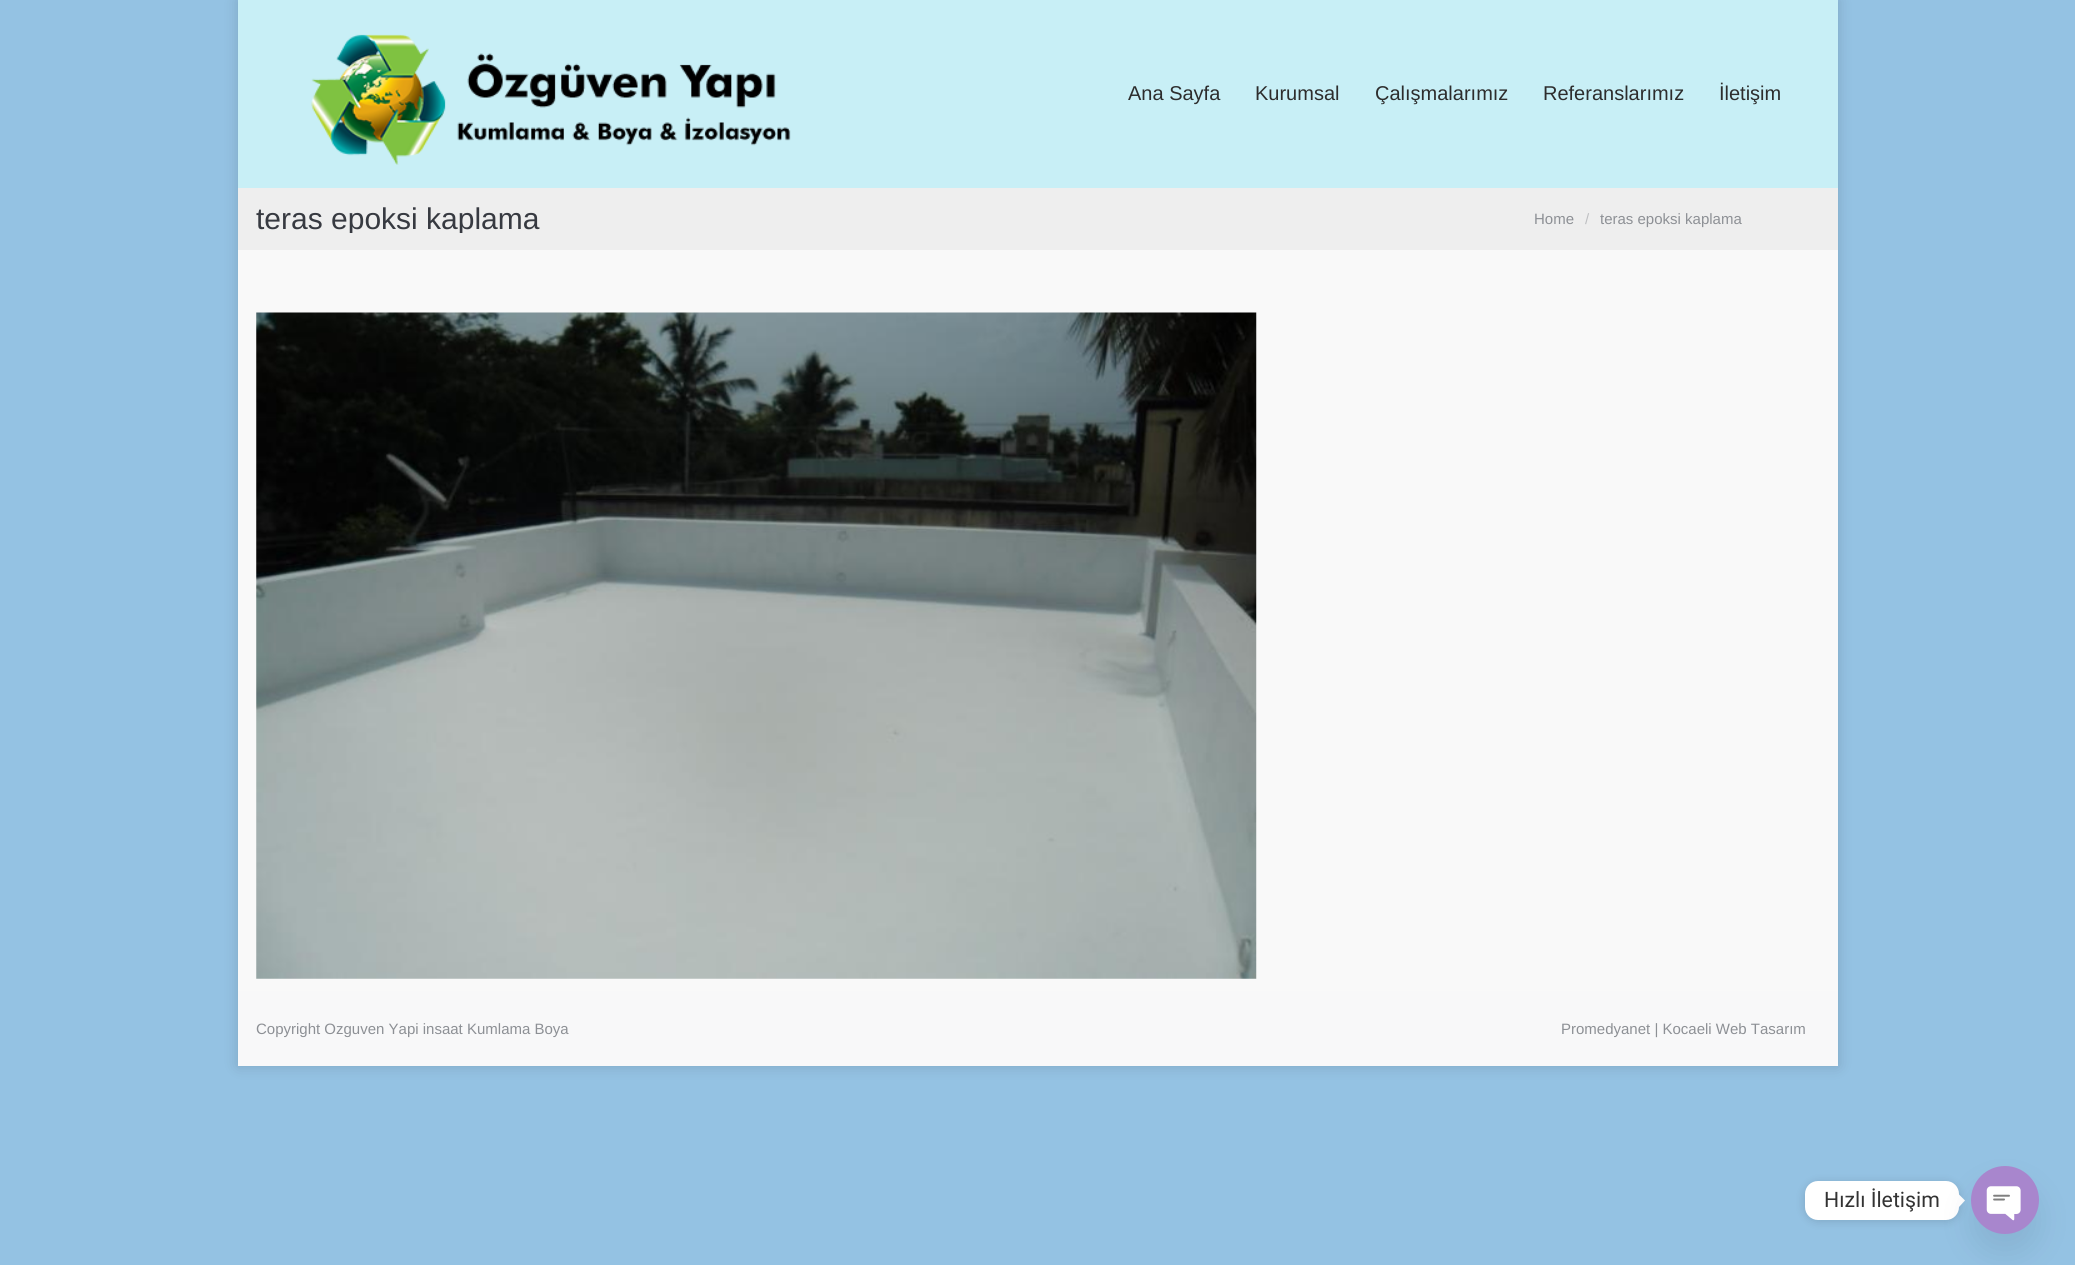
import math
import cairo

surface = cairo.ImageSurface(cairo.FORMAT_RGB24, 2075, 1265)
ctx = cairo.Context(surface)
options = cairo.FontOptions()
options.set_hint_metrics(cairo.HINT_METRICS_OFF)
options.set_hint_style(cairo.HINT_STYLE_NONE)
ctx.set_font_options(options)
ctx.set_miter_limit(4)


def round_rect(x, y, w, h, r):
    ctx.new_sub_path()
    for i, (u, v) in enumerate([(x + w - r, y + h - r), (x + r, y + h - r), (x + r, y + r), (x + w - r, y + r)]):
        ctx.arc(u, v, r, i * math.pi / 2, (i + 1) * math.pi / 2)
    ctx.close_path()


def shadow(x, y, w, h, r, blur, alpha):
    ctx.push_group_with_content(cairo.CONTENT_ALPHA)
    ctx.set_operator(cairo.OPERATOR_SOURCE)
    for i in range(15, -16, -2):
        e = blur * i / 6
        if min(w, h) + 2 * e > 0:
            ctx.set_source_rgba(0, 0, 0, alpha * math.erfc((i - 1) / 8.5) / 2)
            round_rect(x - e, y - e, w + 2 * e, h + 2 * e, max(0, min(r + e + blur * .6, min(w, h) / 2 + e)))
            ctx.fill()
    ctx.mask(ctx.pop_group())


def picture(path, x, y, w, h):
    ctx.save()
    ctx.set_source_surface(cairo.ImageSurface.create_from_png(path), x, y)
    ctx.rectangle(x, y, w, h)
    ctx.fill()
    ctx.restore()


ctx.set_source_rgb(0.58, 0.761, 0.89)
ctx.paint()
ctx.set_source_rgb(0, 0, 0)
shadow(238, 0, 1600, 1066, 0, 7.5, 0.15)
ctx.set_source_rgb(0.976, 0.976, 0.976)
ctx.rectangle(238, 0, 1600, 991)
ctx.fill()
ctx.set_source_rgba(0.569, 0.89, 0.949, 0.47)
ctx.rectangle(238, 0, 1600, 188)
ctx.fill()
picture("img1.png", 311, 34, 480, 131)
ctx.select_font_face("Liberation Sans")
ctx.set_font_size(20)
ctx.set_source_rgb(0.176, 0.176, 0.176)
ctx.move_to(1128, 100)
ctx.show_text("Ana Sayfa")
ctx.move_to(1255, 100)
ctx.show_text("Kurumsal")
ctx.move_to(1375, 100)
ctx.show_text("Çalışmalarımız")
ctx.move_to(1543, 100)
ctx.show_text("Referanslarımız")
ctx.move_to(1719, 100)
ctx.show_text("İletişim")
ctx.set_source_rgb(0.933, 0.933, 0.933)
ctx.rectangle(238, 188, 1600, 62)
ctx.fill()
ctx.save()
ctx.rectangle(256, 205, 284, 28)
ctx.clip()
ctx.set_font_size(30)
ctx.set_source_rgb(0.216, 0.227, 0.255)
ctx.move_to(256, 229)
ctx.show_text("teras epoksi kaplama")
ctx.restore()
ctx.set_font_size(15)
ctx.set_source_rgb(0.553, 0.565, 0.584)
ctx.move_to(1534, 224)
ctx.show_text("Home")
ctx.set_source_rgb(0.745, 0.749, 0.761)
ctx.move_to(1585, 224)
ctx.show_text("/")
ctx.set_source_rgb(0.553, 0.565, 0.584)
ctx.move_to(1600, 224)
ctx.show_text("teras epoksi kaplama")
picture("img2.png", 256, 312, 1001, 667)
ctx.set_source_rgb(0.969, 0.969, 0.973)
ctx.rectangle(238, 991, 1600, 75)
ctx.fill()
ctx.set_source_rgb(0.553, 0.565, 0.584)
ctx.move_to(256, 1034)
ctx.show_text("Copyright Ozguven Yapi insaat Kumlama Boya")
ctx.move_to(1561, 1034)
ctx.show_text("Promedyanet | Kocaeli Web Tasarım")
ctx.set_source_rgb(0, 0, 0)
shadow(1805, 1183, 154, 38, 13, 5, 0.15)
ctx.set_source_rgb(1, 1, 1)
round_rect(1805, 1181, 154, 39, 13)
ctx.fill()
ctx.select_font_face("Roboto")
ctx.set_font_size(21.25)
ctx.set_source_rgb(0.2, 0.2, 0.2)
ctx.move_to(1824, 1207)
ctx.show_text("Hızlı İletişim")
ctx.set_source_rgb(1, 1, 1)
ctx.new_path()
ctx.move_to(1959, 1207)
ctx.line_to(1959, 1194.5)
ctx.line_to(1965, 1200.5)
ctx.close_path()
ctx.fill()
ctx.set_source_rgb(0.286, 0.408, 0.494)
shadow(1971, 1186, 68, 68, 34, 15, 0.16)
picture("img3.png", 1971, 1166, 68, 68)
surface.write_to_png("page.png")
